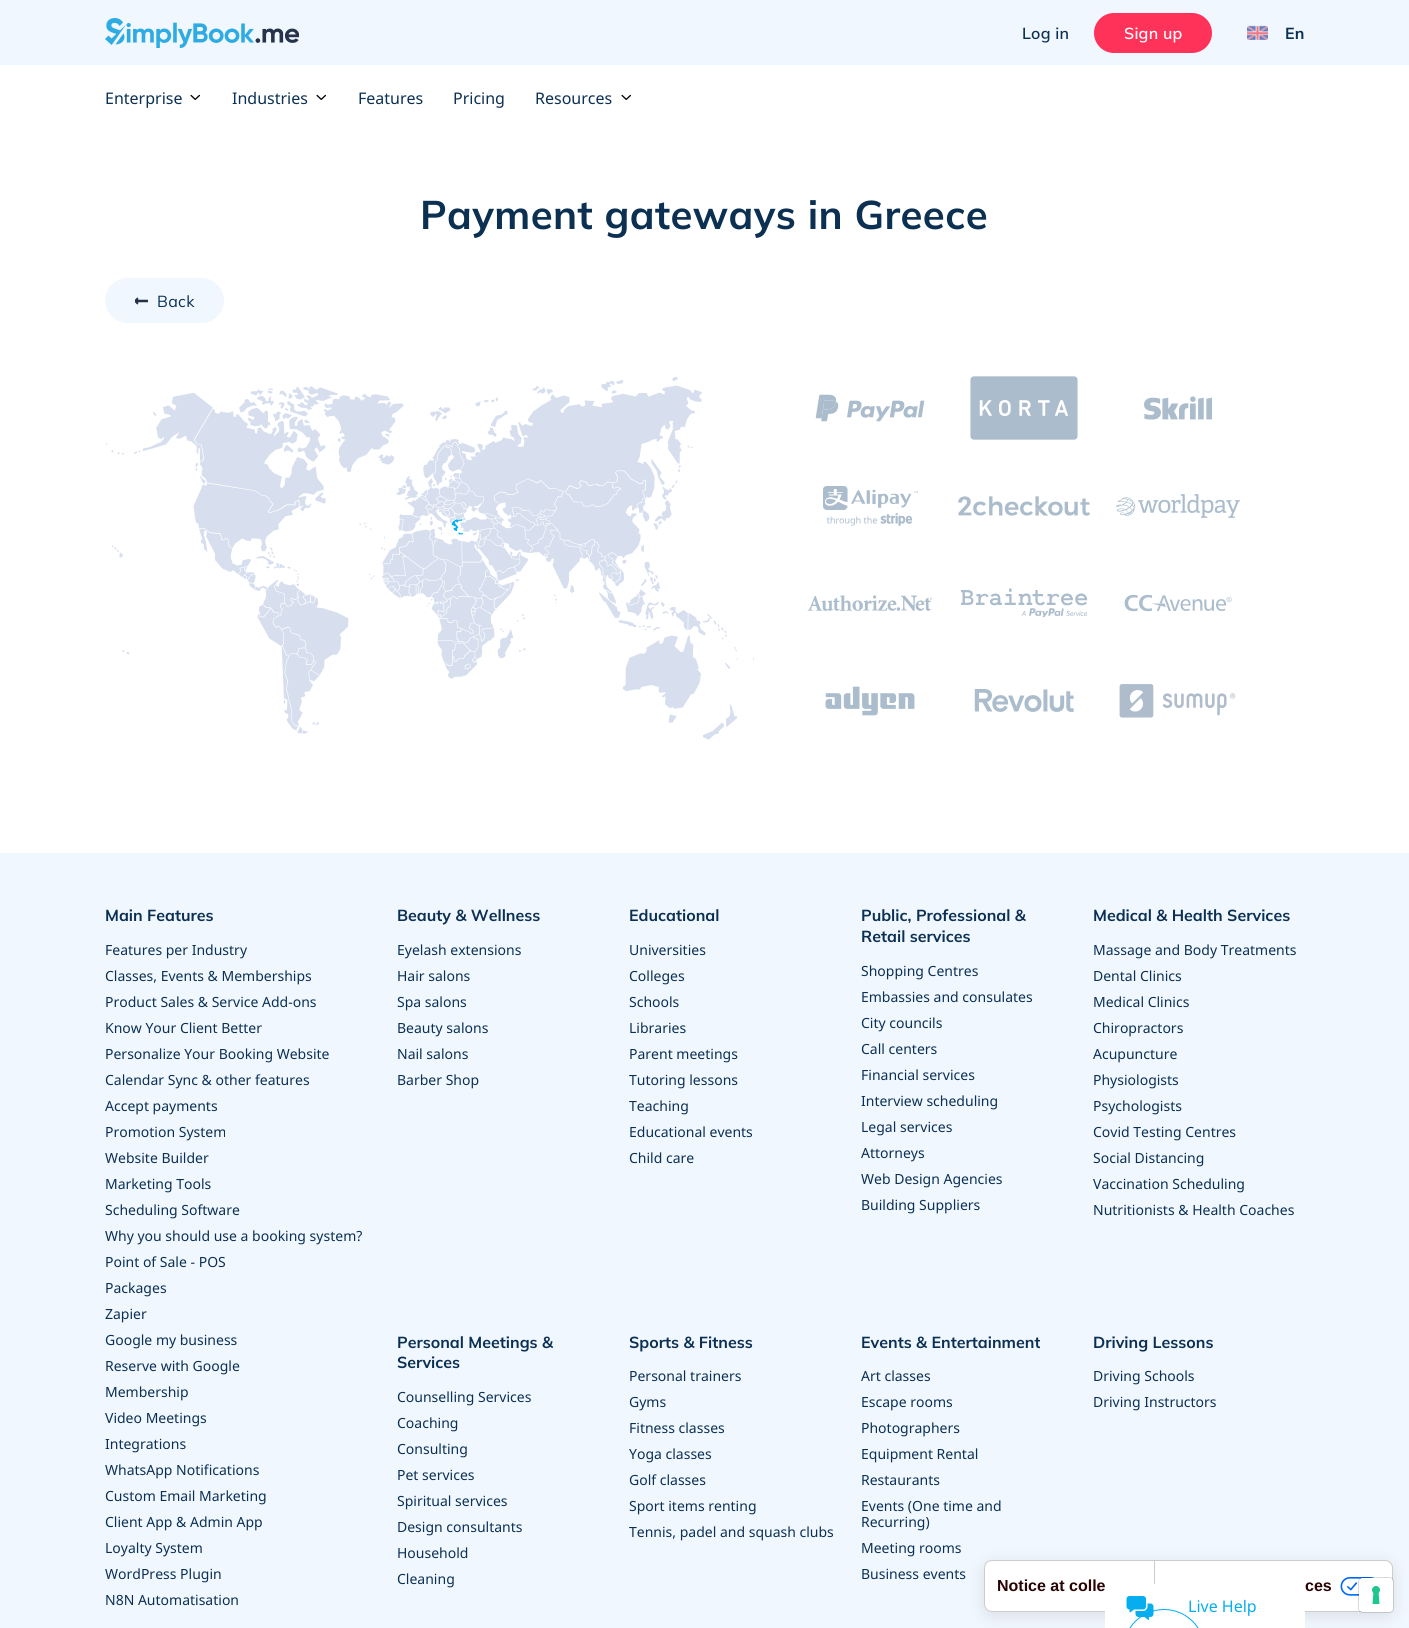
import math
import cairo

surface = cairo.ImageSurface(cairo.FORMAT_RGB24, 1409, 1628)
ctx = cairo.Context(surface)
options = cairo.FontOptions()
options.set_hint_metrics(cairo.HINT_METRICS_OFF)
options.set_hint_style(cairo.HINT_STYLE_NONE)
ctx.set_font_options(options)
ctx.set_miter_limit(4)


def spaced_text(x, y, s, letter, word):
    ctx.move_to(x, y)
    for ch in s:
        ctx.show_text(ch)
        ctx.rel_move_to(letter + word * (ch == ' '), 0)


def round_rect(x, y, w, h, r):
    ctx.new_sub_path()
    for i, (u, v) in enumerate([(x + w - r, y + h - r), (x + r, y + h - r), (x + r, y + r), (x + w - r, y + r)]):
        ctx.arc(u, v, r, i * math.pi / 2, (i + 1) * math.pi / 2)
    ctx.close_path()


def shadow(x, y, w, h, r, blur, alpha):
    ctx.push_group_with_content(cairo.CONTENT_ALPHA)
    ctx.set_operator(cairo.OPERATOR_SOURCE)
    for i in range(15, -16, -2):
        e = blur * i / 6
        if min(w, h) + 2 * e > 0:
            ctx.set_source_rgba(0, 0, 0, alpha * math.erfc((i - 1) / 8.5) / 2)
            round_rect(x - e, y - e, w + 2 * e, h + 2 * e, max(0, min(r + e + blur * .6, min(w, h) / 2 + e)))
            ctx.fill()
    ctx.mask(ctx.pop_group())


def picture(path, x, y, w, h):
    ctx.save()
    ctx.set_source_surface(cairo.ImageSurface.create_from_png(path), x, y)
    ctx.rectangle(x, y, w, h)
    ctx.fill()
    ctx.restore()


ctx.set_source_rgb(1, 1, 1)
ctx.paint()
ctx.set_source_rgb(0.945, 0.965, 1)
ctx.rectangle(0, 0, 1409, 65)
ctx.fill()
picture("img1.png", 105, 18, 194, 30)
ctx.select_font_face("Mulish SemiBold")
ctx.set_font_size(16)
ctx.set_source_rgb(0.043, 0.188, 0.322)
spaced_text(1022, 39, "Log in", 0.25, 0)
ctx.set_source_rgb(1, 0.196, 0.349)
round_rect(1094, 13, 118, 40, 20)
ctx.fill()
ctx.set_source_rgb(1, 1, 1)
spaced_text(1124, 39, "Sign up", 0.25, 0)
picture("img2.png", 1247, 25, 21, 15)
ctx.select_font_face("Mulish", cairo.FONT_SLANT_NORMAL, cairo.FONT_WEIGHT_BOLD)
ctx.set_source_rgb(0.043, 0.188, 0.322)
spaced_text(1285, 39, "En", 0.25, 0)
ctx.select_font_face("Noto Sans")
ctx.move_to(105, 104)
ctx.show_text("Enterprise")
picture("img3.png", 190, 94, 10, 6)
ctx.move_to(232, 104)
ctx.show_text("Industries")
picture("img3.png", 316, 94, 10, 6)
ctx.move_to(358, 104)
ctx.show_text("Features")
ctx.move_to(453, 104)
ctx.show_text("Pricing")
ctx.move_to(535, 104)
ctx.show_text("Resources")
picture("img3.png", 621, 94, 10, 6)
ctx.select_font_face("Mulish", cairo.FONT_SLANT_NORMAL, cairo.FONT_WEIGHT_BOLD)
ctx.set_font_size(40)
spaced_text(420, 229, "Payment gateways in Greece", 0.4, 0)
ctx.set_source_rgb(0.945, 0.965, 1)
round_rect(105, 278, 119, 45, 22.5)
ctx.fill()
picture("img4.png", 135, 297, 13, 8)
ctx.select_font_face("Mulish")
ctx.set_font_size(16)
ctx.set_source_rgb(0.043, 0.188, 0.322)
spaced_text(157, 307, "Back", 0.25, 0)
picture("img5.png", 106, 376, 648, 364)
picture("img6.png", 815, 394, 110, 28)
picture("img7.png", 970, 376, 108, 64)
picture("img8.png", 1144, 396, 68, 24)
picture("img9.png", 823, 486, 95, 40)
picture("img10.png", 958, 496, 132, 20)
picture("img11.png", 1116, 494, 124, 24)
picture("img12.png", 807, 595, 126, 16)
picture("img13.png", 961, 588, 127, 30)
picture("img14.png", 1124, 594, 108, 18)
picture("img15.png", 825, 686, 90, 30)
picture("img16.png", 974, 689, 100, 23)
picture("img17.png", 1119, 684, 117, 34)
ctx.set_source_rgb(0.945, 0.965, 1)
ctx.rectangle(0, 853, 1409, 775)
ctx.fill()
ctx.select_font_face("Mulish", cairo.FONT_SLANT_NORMAL, cairo.FONT_WEIGHT_BOLD)
ctx.set_source_rgb(0.043, 0.188, 0.322)
ctx.move_to(105, 921)
ctx.show_text("Main Features")
ctx.select_font_face("Noto Sans")
ctx.set_font_size(14)
ctx.move_to(105, 955)
ctx.show_text("Features per Industry")
ctx.move_to(105, 981)
ctx.show_text("Classes, Events & Memberships")
ctx.move_to(105, 1007)
ctx.show_text("Product Sales & Service Add-ons")
ctx.move_to(105, 1033)
ctx.show_text("Know Your Client Better")
ctx.move_to(105, 1059)
ctx.show_text("Personalize Your Booking Website")
ctx.move_to(105, 1085)
ctx.show_text("Calendar Sync & other features")
ctx.move_to(105, 1111)
ctx.show_text("Accept payments")
ctx.move_to(105, 1137)
ctx.show_text("Promotion System")
ctx.move_to(105, 1163)
ctx.show_text("Website Builder")
ctx.move_to(105, 1189)
ctx.show_text("Marketing Tools")
ctx.move_to(105, 1215)
ctx.show_text("Scheduling Software")
ctx.move_to(105, 1241)
ctx.show_text("Why you should use a booking system?")
ctx.move_to(105, 1267)
ctx.show_text("Point of Sale - POS")
ctx.move_to(105, 1293)
ctx.show_text("Packages")
ctx.move_to(105, 1319)
ctx.show_text("Zapier")
ctx.move_to(105, 1345)
ctx.show_text("Google my business")
ctx.move_to(105, 1371)
ctx.show_text("Reserve with Google")
ctx.move_to(105, 1397)
ctx.show_text("Membership")
ctx.move_to(105, 1423)
ctx.show_text("Video Meetings")
ctx.move_to(105, 1449)
ctx.show_text("Integrations")
ctx.move_to(105, 1475)
ctx.show_text("WhatsApp Notifications")
ctx.move_to(105, 1501)
ctx.show_text("Custom Email Marketing")
ctx.move_to(105, 1527)
ctx.show_text("Client App & Admin App")
ctx.move_to(105, 1553)
ctx.show_text("Loyalty System")
ctx.move_to(105, 1579)
ctx.show_text("WordPress Plugin")
ctx.move_to(105, 1605)
ctx.show_text("N8N Automatisation")
ctx.select_font_face("Mulish", cairo.FONT_SLANT_NORMAL, cairo.FONT_WEIGHT_BOLD)
ctx.set_font_size(16)
ctx.move_to(397, 921)
ctx.show_text("Beauty & Wellness")
ctx.select_font_face("Noto Sans")
ctx.set_font_size(14)
ctx.move_to(397, 955)
ctx.show_text("Eyelash extensions")
ctx.move_to(397, 981)
ctx.show_text("Hair salons")
ctx.move_to(397, 1007)
ctx.show_text("Spa salons")
ctx.move_to(397, 1033)
ctx.show_text("Beauty salons")
ctx.move_to(397, 1059)
ctx.show_text("Nail salons")
ctx.move_to(397, 1085)
ctx.show_text("Barber Shop")
ctx.select_font_face("Mulish", cairo.FONT_SLANT_NORMAL, cairo.FONT_WEIGHT_BOLD)
ctx.set_font_size(16)
ctx.move_to(629, 921)
ctx.show_text("Educational")
ctx.select_font_face("Noto Sans")
ctx.set_font_size(14)
ctx.move_to(629, 955)
ctx.show_text("Universities")
ctx.move_to(629, 981)
ctx.show_text("Colleges")
ctx.move_to(629, 1007)
ctx.show_text("Schools")
ctx.move_to(629, 1033)
ctx.show_text("Libraries")
ctx.move_to(629, 1059)
ctx.show_text("Parent meetings")
ctx.move_to(629, 1085)
ctx.show_text("Tutoring lessons")
ctx.move_to(629, 1111)
ctx.show_text("Teaching")
ctx.move_to(629, 1137)
ctx.show_text("Educational events")
ctx.move_to(629, 1163)
ctx.show_text("Child care")
ctx.select_font_face("Mulish", cairo.FONT_SLANT_NORMAL, cairo.FONT_WEIGHT_BOLD)
ctx.set_font_size(16)
ctx.move_to(861, 921)
ctx.show_text("Public, Professional &")
ctx.move_to(861, 942)
ctx.show_text("Retail services")
ctx.select_font_face("Noto Sans")
ctx.set_font_size(14)
ctx.move_to(861, 976)
ctx.show_text("Shopping Centres")
ctx.move_to(861, 1002)
ctx.show_text("Embassies and consulates")
ctx.move_to(861, 1028)
ctx.show_text("City councils")
ctx.move_to(861, 1054)
ctx.show_text("Call centers")
ctx.move_to(861, 1080)
ctx.show_text("Financial services")
ctx.move_to(861, 1106)
ctx.show_text("Interview scheduling")
ctx.move_to(861, 1132)
ctx.show_text("Legal services")
ctx.move_to(861, 1158)
ctx.show_text("Attorneys")
ctx.move_to(861, 1184)
ctx.show_text("Web Design Agencies")
ctx.move_to(861, 1210)
ctx.show_text("Building Suppliers")
ctx.select_font_face("Mulish", cairo.FONT_SLANT_NORMAL, cairo.FONT_WEIGHT_BOLD)
ctx.set_font_size(16)
ctx.move_to(1093, 921)
ctx.show_text("Medical & Health Services")
ctx.select_font_face("Noto Sans")
ctx.set_font_size(14)
ctx.move_to(1093, 955)
ctx.show_text("Massage and Body Treatments")
ctx.move_to(1093, 981)
ctx.show_text("Dental Clinics")
ctx.move_to(1093, 1007)
ctx.show_text("Medical Clinics")
ctx.move_to(1093, 1033)
ctx.show_text("Chiropractors")
ctx.move_to(1093, 1059)
ctx.show_text("Acupuncture")
ctx.move_to(1093, 1085)
ctx.show_text("Physiologists")
ctx.move_to(1093, 1111)
ctx.show_text("Psychologists")
ctx.move_to(1093, 1137)
ctx.show_text("Covid Testing Centres")
ctx.move_to(1093, 1163)
ctx.show_text("Social Distancing")
ctx.move_to(1093, 1189)
ctx.show_text("Vaccination Scheduling")
ctx.move_to(1093, 1215)
ctx.show_text("Nutritionists & Health Coaches")
ctx.select_font_face("Mulish", cairo.FONT_SLANT_NORMAL, cairo.FONT_WEIGHT_BOLD)
ctx.set_font_size(16)
ctx.move_to(397, 1348)
ctx.show_text("Personal Meetings &")
ctx.move_to(397, 1368)
ctx.show_text("Services")
ctx.select_font_face("Noto Sans")
ctx.set_font_size(14)
ctx.move_to(397, 1402)
ctx.show_text("Counselling Services")
ctx.move_to(397, 1428)
ctx.show_text("Coaching")
ctx.move_to(397, 1454)
ctx.show_text("Consulting")
ctx.move_to(397, 1480)
ctx.show_text("Pet services")
ctx.move_to(397, 1506)
ctx.show_text("Spiritual services")
ctx.move_to(397, 1532)
ctx.show_text("Design consultants")
ctx.move_to(397, 1558)
ctx.show_text("Household")
ctx.move_to(397, 1584)
ctx.show_text("Cleaning")
ctx.select_font_face("Mulish", cairo.FONT_SLANT_NORMAL, cairo.FONT_WEIGHT_BOLD)
ctx.set_font_size(16)
ctx.move_to(629, 1348)
ctx.show_text("Sports & Fitness")
ctx.select_font_face("Noto Sans")
ctx.set_font_size(14)
ctx.move_to(629, 1381)
ctx.show_text("Personal trainers")
ctx.move_to(629, 1407)
ctx.show_text("Gyms")
ctx.move_to(629, 1433)
ctx.show_text("Fitness classes")
ctx.move_to(629, 1459)
ctx.show_text("Yoga classes")
ctx.move_to(629, 1485)
ctx.show_text("Golf classes")
ctx.move_to(629, 1511)
ctx.show_text("Sport items renting")
ctx.move_to(629, 1537)
ctx.show_text("Tennis, padel and squash clubs")
ctx.select_font_face("Mulish", cairo.FONT_SLANT_NORMAL, cairo.FONT_WEIGHT_BOLD)
ctx.set_font_size(16)
ctx.move_to(861, 1348)
ctx.show_text("Events & Entertainment")
ctx.select_font_face("Noto Sans")
ctx.set_font_size(14)
ctx.move_to(861, 1381)
ctx.show_text("Art classes")
ctx.move_to(861, 1407)
ctx.show_text("Escape rooms")
ctx.move_to(861, 1433)
ctx.show_text("Photographers")
ctx.move_to(861, 1459)
ctx.show_text("Equipment Rental")
ctx.move_to(861, 1485)
ctx.show_text("Restaurants")
ctx.move_to(861, 1511)
ctx.show_text("Events (One time and")
ctx.move_to(861, 1527)
ctx.show_text("Recurring)")
ctx.move_to(861, 1553)
ctx.show_text("Meeting rooms")
ctx.move_to(861, 1579)
ctx.show_text("Business events")
ctx.select_font_face("Mulish", cairo.FONT_SLANT_NORMAL, cairo.FONT_WEIGHT_BOLD)
ctx.set_font_size(16)
ctx.move_to(1093, 1348)
ctx.show_text("Driving Lessons")
ctx.select_font_face("Noto Sans")
ctx.set_font_size(14)
ctx.move_to(1093, 1381)
ctx.show_text("Driving Schools")
ctx.move_to(1093, 1407)
ctx.show_text("Driving Instructors")
ctx.set_source_rgb(0, 0, 0)
shadow(984, 1564, 409, 52, 8, 8, 0.1)
ctx.set_source_rgb(1, 1, 1)
round_rect(984, 1560, 409, 52, 8)
ctx.fill()
round_rect(984.5, 1560.5, 408, 51, 7.5)
ctx.set_source_rgba(0, 0, 0, 0.2)
ctx.set_line_width(1)
ctx.stroke()
picture("img19.png", 1340, 1577, 34, 19)
round_rect(1358.5, 1577.5, 35, 35, 4.5)
ctx.set_source_rgba(0, 0, 0, 0.15)
ctx.stroke()
ctx.set_source_rgb(1, 1, 1)
round_rect(1359, 1578, 34, 34, 4)
ctx.fill()
picture("img18.png", 1372, 1586, 8, 18)
ctx.select_font_face("Liberation Sans", cairo.FONT_SLANT_NORMAL, cairo.FONT_WEIGHT_BOLD)
ctx.set_font_size(16)
ctx.set_source_rgb(0.157, 0.016, 0.016)
ctx.move_to(997, 1591)
ctx.show_text("Notice at colle")
ctx.set_source_rgb(0.8, 0.8, 0.8)
ctx.rectangle(1154, 1561, 1, 23)
ctx.fill()
ctx.set_source_rgb(0.157, 0.016, 0.016)
ctx.move_to(1305, 1591)
ctx.show_text("ces")
ctx.set_source_rgb(1, 1, 1)
ctx.new_path()
ctx.move_to(1115, 1584)
ctx.line_to(1295, 1584)
ctx.curve_to(1300.5, 1584, 1305, 1588.5, 1305, 1594)
ctx.line_to(1305, 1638)
ctx.line_to(1105, 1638)
ctx.line_to(1105, 1594)
ctx.curve_to(1105, 1588.5, 1109.5, 1584, 1115, 1584)
ctx.close_path()
ctx.fill()
picture("img20.png", 1126, 1596, 28, 24)
ctx.select_font_face("Noto Sans")
ctx.set_source_rgb(0.024, 0.678, 0.937)
ctx.move_to(1188, 1612)
ctx.show_text("Live Help")
round_rect(1123.5, 1609.5, 81, 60, 40.5)
ctx.set_source_rgb(0, 0.682, 0.949)
ctx.stroke()
surface.write_to_png("page.png")
